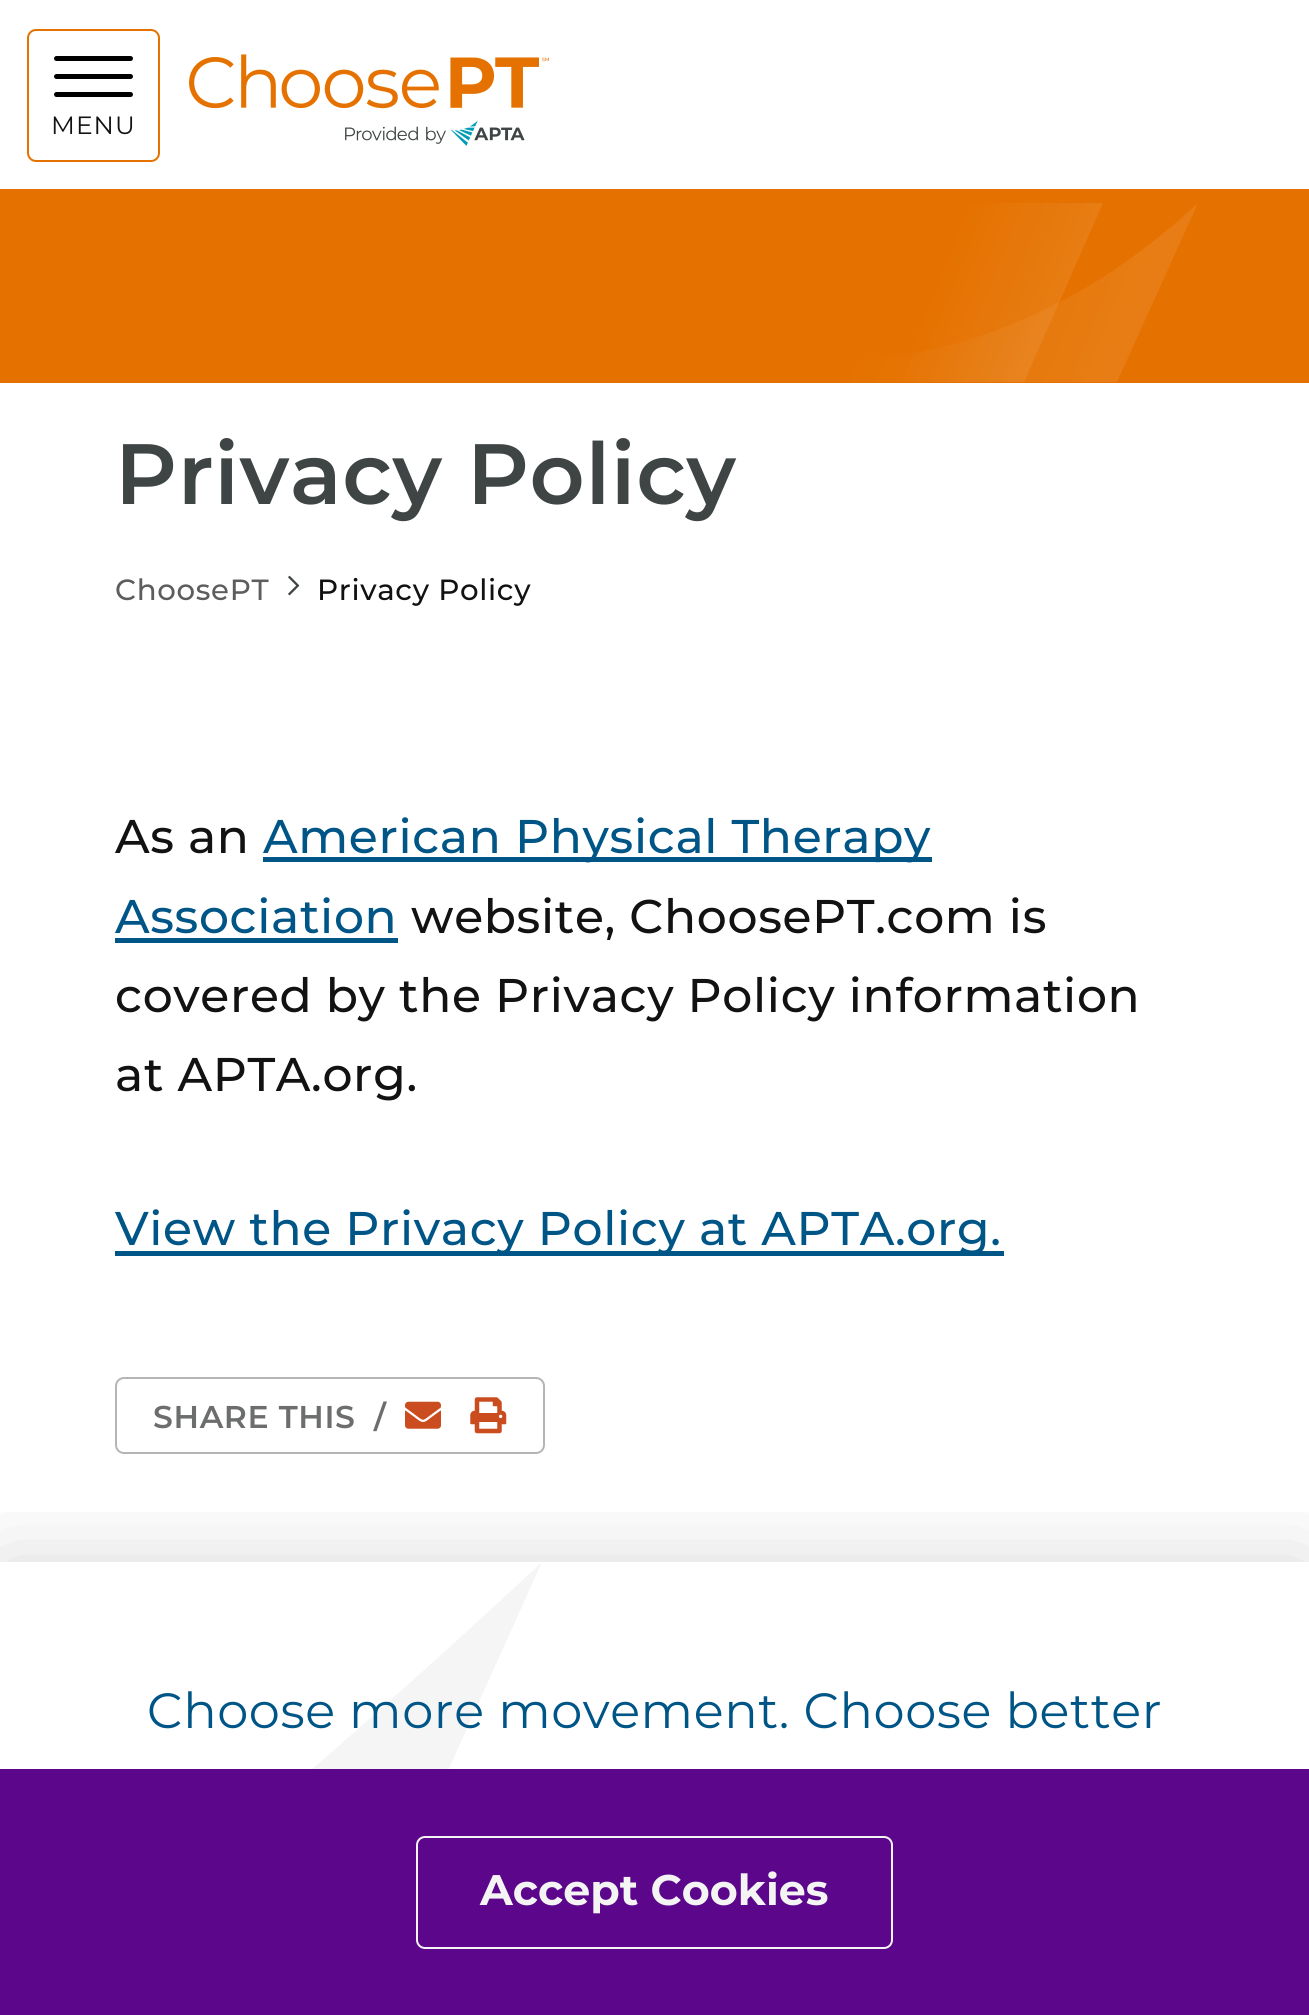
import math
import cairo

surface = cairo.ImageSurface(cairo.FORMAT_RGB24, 1309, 2015)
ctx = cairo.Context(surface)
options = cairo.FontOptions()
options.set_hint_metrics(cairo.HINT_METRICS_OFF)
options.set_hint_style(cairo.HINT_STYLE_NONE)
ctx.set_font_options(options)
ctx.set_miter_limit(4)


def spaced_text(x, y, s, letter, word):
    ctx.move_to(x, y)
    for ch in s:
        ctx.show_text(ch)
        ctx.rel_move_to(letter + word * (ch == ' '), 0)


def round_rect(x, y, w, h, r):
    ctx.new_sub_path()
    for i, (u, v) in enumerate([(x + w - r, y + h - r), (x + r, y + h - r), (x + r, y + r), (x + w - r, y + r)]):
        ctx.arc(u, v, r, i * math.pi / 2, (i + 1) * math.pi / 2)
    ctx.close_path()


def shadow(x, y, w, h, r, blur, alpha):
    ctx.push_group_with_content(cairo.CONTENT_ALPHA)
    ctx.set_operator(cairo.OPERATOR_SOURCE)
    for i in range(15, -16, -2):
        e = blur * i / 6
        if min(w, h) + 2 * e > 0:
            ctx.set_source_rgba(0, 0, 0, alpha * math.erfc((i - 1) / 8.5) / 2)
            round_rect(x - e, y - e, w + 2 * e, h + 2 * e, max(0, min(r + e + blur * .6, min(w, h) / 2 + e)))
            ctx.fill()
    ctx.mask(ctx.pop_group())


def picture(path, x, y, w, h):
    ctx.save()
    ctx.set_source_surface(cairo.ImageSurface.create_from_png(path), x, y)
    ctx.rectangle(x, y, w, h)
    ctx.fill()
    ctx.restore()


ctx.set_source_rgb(1, 1, 1)
ctx.paint()
round_rect(28, 30, 131, 131, 8)
ctx.set_source_rgb(0.898, 0.447, 0)
ctx.stroke()
ctx.set_source_rgb(0, 0, 0)
round_rect(54, 56, 79, 5, 2.5)
ctx.fill()
round_rect(54, 74, 79, 5, 2.5)
ctx.fill()
round_rect(54, 92, 79, 5, 2.5)
ctx.fill()
ctx.select_font_face("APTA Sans")
ctx.set_font_size(25)
ctx.set_source_rgb(0.071, 0.071, 0.071)
spaced_text(51, 134, "MENU", 1, 0)
picture("img1.png", 189, 54, 360, 92)
ctx.set_source_rgb(0.898, 0.447, 0)
ctx.rectangle(0, 189, 1309, 194)
ctx.fill()
gradient = cairo.LinearGradient(885, 258, 1053, 326)
gradient.add_color_stop_rgba(0.31, 0.898, 0.447, 0, 1)
gradient.add_color_stop_rgba(1, 0.906, 0.49, 0.078, 1)
ctx.set_source(gradient)
ctx.new_path()
ctx.move_to(835, 382)
ctx.line_to(914, 203)
ctx.line_to(1103, 203)
ctx.line_to(1024, 382)
ctx.close_path()
ctx.fill()
gradient = cairo.LinearGradient(801, 208, 1125, 339)
gradient.add_color_stop_rgba(0.3, 1, 1, 1, 0)
gradient.add_color_stop_rgba(1, 1, 1, 1, 0.08)
ctx.set_source(gradient)
ctx.new_path()
ctx.move_to(1117, 382)
ctx.line_to(1198, 203)
ctx.curve_to(1049, 342, 903, 362, 821, 361)
ctx.line_to(821, 382)
ctx.close_path()
ctx.fill()
ctx.select_font_face("APTA Sans SemiBold")
ctx.set_font_size(85.5)
ctx.set_source_rgb(0.247, 0.267, 0.267)
spaced_text(115, 504, "Privacy Policy", 0.65, 0)
ctx.select_font_face("APTA Sans Medium")
ctx.set_font_size(29.25)
ctx.set_source_rgb(0.365, 0.365, 0.365)
spaced_text(115, 600, "ChoosePT", 0.65, 0)
picture("img2.png", 288, 575, 12, 21)
ctx.set_source_rgb(0.071, 0.071, 0.071)
spaced_text(317, 600, "Privacy Policy", 0.65, 0)
ctx.set_font_size(47.25)
spaced_text(115, 853, "As an", 0.65, 0)
ctx.set_source_rgb(0, 0.333, 0.529)
ctx.rectangle(263, 857, 669, 5)
ctx.fill()
spaced_text(263, 853, "American Physical Therapy", 0.65, 0)
spaced_text(115, 933, "Association", 0.65, 0)
ctx.rectangle(115, 938, 283, 5)
ctx.fill()
ctx.set_source_rgb(0.071, 0.071, 0.071)
spaced_text(411, 933, "website, ChoosePT.com is", 0.65, 0)
spaced_text(115, 1012, "covered by the Privacy Policy information", 0.65, 0)
spaced_text(115, 1091, "at APTA.org.", 0.65, 0)
ctx.set_source_rgb(0, 0.333, 0.529)
ctx.rectangle(115, 1251, 889, 5)
ctx.fill()
spaced_text(115, 1245, "View the Privacy Policy at APTA.org.", 0.65, 0)
round_rect(116, 1378, 428, 75, 8)
ctx.set_source_rgb(0.71, 0.71, 0.71)
ctx.stroke()
ctx.select_font_face("APTA Sans SemiBold")
ctx.set_font_size(31.5)
ctx.set_source_rgb(0.424, 0.427, 0.427)
spaced_text(153, 1428, "SHARE THIS", 0.65, 0)
spaced_text(374, 1428, "/", 0.65, 0)
picture("img3.png", 405, 1401, 36, 28)
picture("img4.png", 470, 1397, 37, 37)
ctx.save()
ctx.rectangle(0, 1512, 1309, 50)
ctx.clip()
ctx.set_source_rgb(0, 0, 0)
shadow(0, 1562, 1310, 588, 0, 45, 0.15)
ctx.restore()
gradient = cairo.LinearGradient(-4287, 1630, -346, 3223)
gradient.add_color_stop_rgba(0.3, 1, 1, 1, 1)
gradient.add_color_stop_rgba(1, 0.961, 0.961, 0.961, 1)
ctx.set_source(gradient)
ctx.new_path()
ctx.move_to(-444, 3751)
ctx.line_to(542, 1562)
ctx.curve_to(-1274, 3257, -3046, 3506, -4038, 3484)
ctx.line_to(-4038, 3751)
ctx.close_path()
ctx.fill()
ctx.set_source_rgb(0.361, 0.024, 0.549)
ctx.rectangle(0, 1769, 1309, 246)
ctx.fill()
round_rect(417, 1837, 475, 111, 8)
ctx.set_source_rgb(0.957, 0.957, 0.957)
ctx.stroke()
ctx.select_font_face("APTA Sans", cairo.FONT_SLANT_ITALIC, cairo.FONT_WEIGHT_BOLD)
ctx.set_font_size(42.75)
ctx.move_to(480, 1905)
ctx.show_text("Accept Cookies")
ctx.select_font_face("APTA Sans")
ctx.set_font_size(49.5)
ctx.set_source_rgb(0, 0.333, 0.529)
spaced_text(147, 1728, "Choose more movement. Choose better", 0.55, 0)
surface.write_to_png("page.png")
